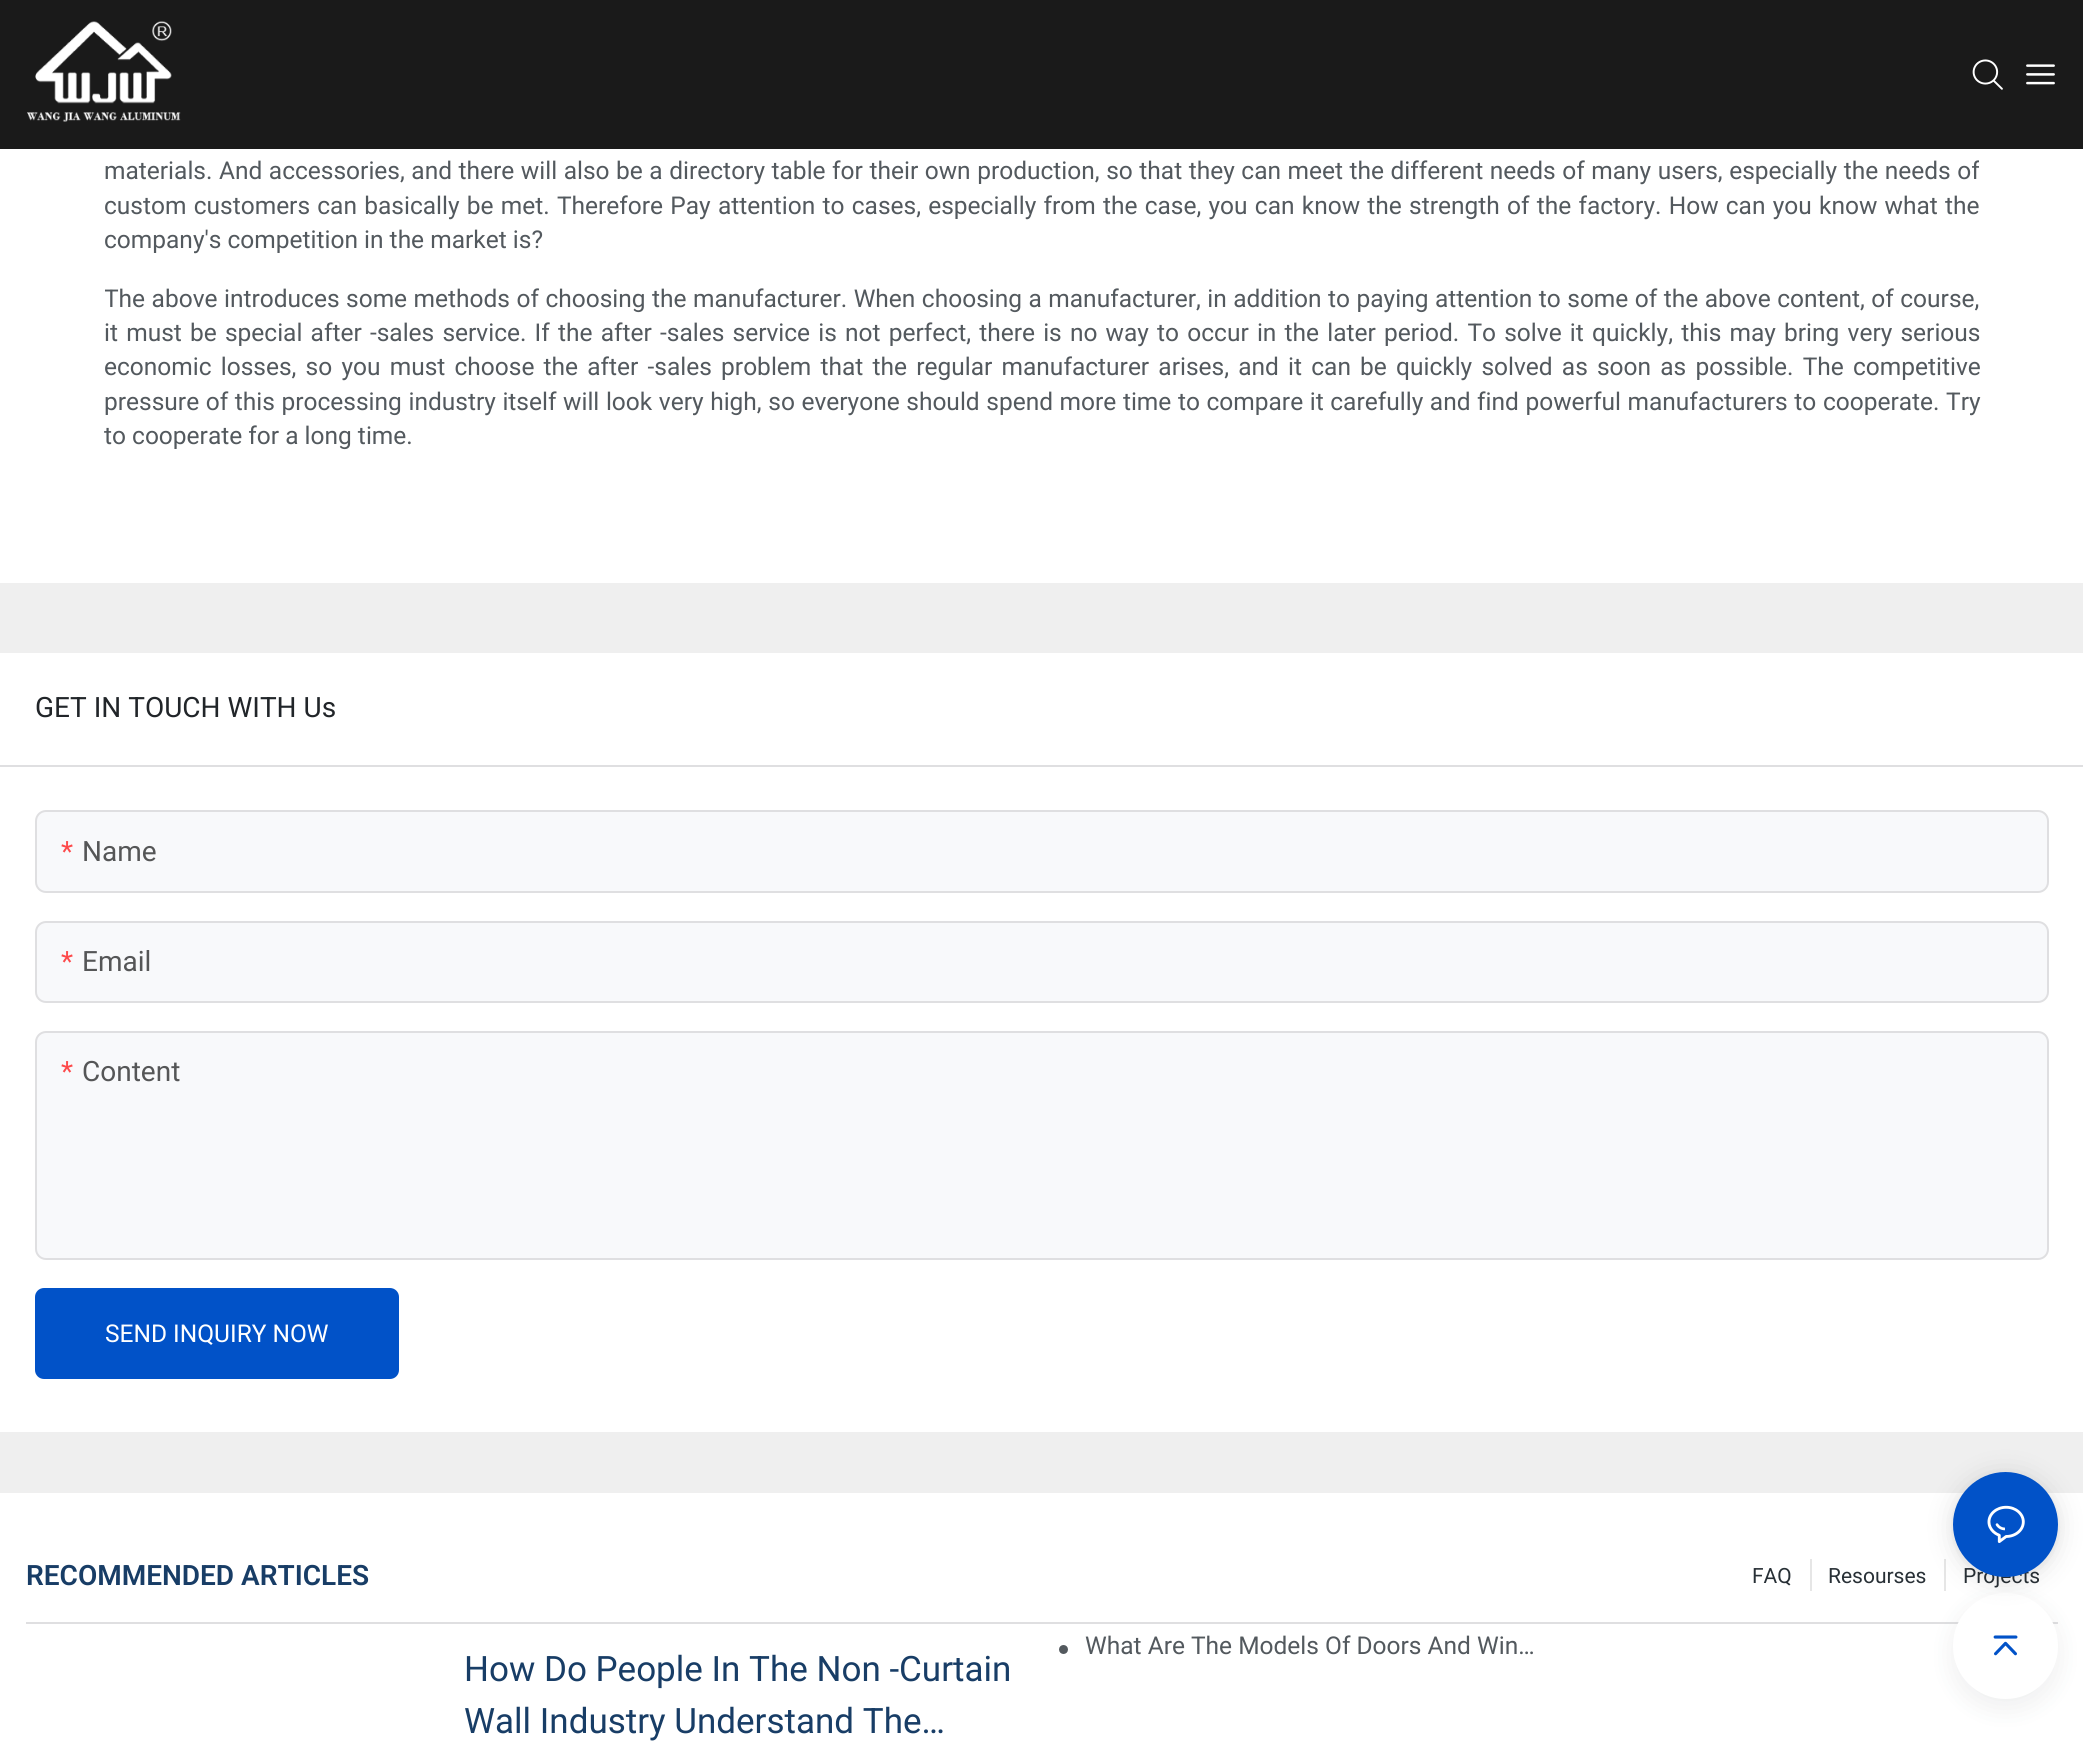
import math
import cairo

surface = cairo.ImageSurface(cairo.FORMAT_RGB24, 2083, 1751)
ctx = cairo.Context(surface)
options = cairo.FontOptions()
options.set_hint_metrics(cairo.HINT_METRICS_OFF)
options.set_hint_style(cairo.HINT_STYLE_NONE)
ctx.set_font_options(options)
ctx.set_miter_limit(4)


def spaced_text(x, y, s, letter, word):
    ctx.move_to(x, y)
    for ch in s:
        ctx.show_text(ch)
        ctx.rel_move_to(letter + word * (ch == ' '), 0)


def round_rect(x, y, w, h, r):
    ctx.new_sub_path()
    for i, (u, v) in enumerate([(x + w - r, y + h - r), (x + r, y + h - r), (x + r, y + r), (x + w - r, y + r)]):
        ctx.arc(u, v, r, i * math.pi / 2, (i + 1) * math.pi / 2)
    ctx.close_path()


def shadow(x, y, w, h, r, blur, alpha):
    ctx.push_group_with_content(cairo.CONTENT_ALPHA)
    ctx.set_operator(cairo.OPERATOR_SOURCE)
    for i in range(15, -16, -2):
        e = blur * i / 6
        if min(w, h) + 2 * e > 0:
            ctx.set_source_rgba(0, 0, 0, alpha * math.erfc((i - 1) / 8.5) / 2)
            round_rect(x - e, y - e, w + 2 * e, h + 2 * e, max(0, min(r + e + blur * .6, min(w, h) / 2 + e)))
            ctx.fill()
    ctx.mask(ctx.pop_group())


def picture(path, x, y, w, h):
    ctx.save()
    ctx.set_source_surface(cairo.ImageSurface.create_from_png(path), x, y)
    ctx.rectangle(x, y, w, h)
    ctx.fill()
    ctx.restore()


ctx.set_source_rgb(1, 1, 1)
ctx.paint()
ctx.set_source_rgb(0.102, 0.102, 0.102)
ctx.rectangle(0, 0, 2083, 149)
ctx.fill()
picture("img1.png", 27, 21, 154, 101)
picture("img2.png", 1972, 59, 31, 31)
picture("img3.png", 2026, 64, 29, 21)
ctx.set_source_rgb(0.937, 0.937, 0.937)
ctx.rectangle(0, 583, 2083, 910)
ctx.fill()
ctx.save()
ctx.rectangle(105, 0, 1874, 478)
ctx.clip()
ctx.select_font_face("Roboto")
ctx.set_font_size(24.5)
ctx.set_source_rgb(0.325, 0.349, 0.369)
spaced_text(104, 179, "materials. And accessories, and there will also be a directory table for their own production, so that they can meet the different needs of many users, especially the needs of", 0, 0.45)
ctx.restore()
ctx.select_font_face("Roboto")
ctx.set_font_size(24.5)
ctx.set_source_rgb(0.325, 0.349, 0.369)
spaced_text(104, 214, "custom customers can basically be met. Therefore Pay attention to cases, especially from the case, you can know the strength of the factory. How can you know what the", 0, 1.15)
ctx.move_to(104, 248)
ctx.show_text("company's competition in the market is?")
ctx.save()
ctx.rectangle(105, 0, 1874, 478)
ctx.clip()
spaced_text(104, 307, "The above introduces some methods of choosing the manufacturer. When choosing a manufacturer, in addition to paying attention to some of the above content, of course,", 0, 0.4)
ctx.restore()
spaced_text(104, 341, "it must be special after -sales service. If the after -sales service is not perfect, there is no way to occur in the later period. To solve it quickly, this may bring very serious", 0, 2.1)
spaced_text(104, 375, "economic losses, so you must choose the after -sales problem that the regular manufacturer arises, and it can be quickly solved as soon as possible. The competitive", 0, 3.1)
spaced_text(104, 410, "pressure of this processing industry itself will look very high, so everyone should spend more time to compare it carefully and find powerful manufacturers to cooperate. Try", 0, 0.5)
ctx.move_to(104, 444)
ctx.show_text("to cooperate for a long time.")
ctx.set_source_rgb(1, 1, 1)
ctx.rectangle(0, 653, 2083, 779)
ctx.fill()
ctx.set_source_rgb(0.875, 0.875, 0.882)
ctx.rectangle(0, 765, 2083, 2)
ctx.fill()
ctx.set_font_size(28)
ctx.set_source_rgb(0.129, 0.145, 0.161)
ctx.move_to(35, 717)
ctx.show_text("GET IN TOUCH WITH Us")
ctx.set_source_rgb(0.969, 0.973, 0.984)
round_rect(36, 811, 2012, 81, 10)
ctx.fill_preserve()
ctx.set_source_rgb(0.875, 0.875, 0.882)
ctx.stroke()
ctx.set_source_rgb(0.992, 0.29, 0.294)
ctx.move_to(61, 861)
ctx.show_text("*")
ctx.set_source_rgb(0.333, 0.337, 0.341)
ctx.move_to(82, 861)
ctx.show_text("Name")
ctx.set_source_rgb(0.969, 0.973, 0.984)
round_rect(36, 922, 2012, 80, 10)
ctx.fill_preserve()
ctx.set_source_rgb(0.875, 0.875, 0.882)
ctx.stroke()
ctx.set_source_rgb(0.992, 0.29, 0.294)
ctx.move_to(61, 971)
ctx.show_text("*")
ctx.set_source_rgb(0.333, 0.337, 0.341)
ctx.move_to(82, 971)
ctx.show_text("Email")
ctx.set_source_rgb(0.969, 0.973, 0.984)
round_rect(36, 1032, 2012, 227, 10)
ctx.fill_preserve()
ctx.set_source_rgb(0.875, 0.875, 0.882)
ctx.stroke()
ctx.set_source_rgb(0.992, 0.29, 0.294)
ctx.move_to(61, 1081)
ctx.show_text("*")
ctx.set_source_rgb(0.333, 0.337, 0.341)
ctx.move_to(82, 1081)
ctx.show_text("Content")
ctx.set_source_rgb(0.004, 0.322, 0.784)
round_rect(35, 1288, 364, 91, 9)
ctx.fill()
ctx.set_font_size(24.5)
ctx.set_source_rgb(1, 1, 1)
ctx.move_to(105, 1342)
ctx.show_text("SEND INQUIRY NOW")
ctx.set_source_rgb(0.875, 0.875, 0.882)
ctx.rectangle(26, 1622, 2032, 2)
ctx.fill()
ctx.select_font_face("Roboto SemiBold")
ctx.set_font_size(28)
ctx.set_source_rgb(0.094, 0.239, 0.4)
ctx.move_to(26, 1585)
ctx.show_text("RECOMMENDED ARTICLES")
ctx.select_font_face("Roboto")
ctx.set_font_size(21)
ctx.set_source_rgb(0.157, 0.188, 0.212)
ctx.move_to(1752, 1583)
ctx.show_text("FAQ")
ctx.set_source_rgb(0.902, 0.902, 0.902)
ctx.rectangle(1810, 1559, 2, 32)
ctx.fill()
ctx.set_source_rgb(0.157, 0.188, 0.212)
ctx.move_to(1828, 1583)
ctx.show_text("Resourses")
ctx.set_source_rgb(0.902, 0.902, 0.902)
ctx.rectangle(1944, 1559, 2, 32)
ctx.fill()
ctx.set_source_rgb(0.157, 0.188, 0.212)
ctx.move_to(1963, 1583)
ctx.show_text("Projects")
ctx.set_source_rgb(0.361, 0.361, 0.361)
ctx.new_path()
ctx.arc(1063.5, 1649.5, 2.5, 0, 2 * math.pi)
ctx.fill_preserve()
ctx.set_source_rgb(0.325, 0.349, 0.369)
ctx.set_line_width(4)
ctx.stroke()
ctx.set_font_size(24.5)
ctx.move_to(1085, 1654)
ctx.show_text("What Are The Models Of Doors And Win…")
ctx.set_font_size(35)
ctx.set_source_rgb(0.094, 0.239, 0.4)
ctx.move_to(464, 1681)
ctx.show_text("How Do People In The Non -Curtain")
ctx.move_to(464, 1733)
ctx.show_text("Wall Industry Understand The…")
ctx.set_source_rgb(0.157, 0.184, 0.212)
shadow(1953, 1601, 105, 107, 52.5, 13, 0.08)
ctx.set_source_rgb(1, 1, 1)
round_rect(1953, 1593, 105, 106, 52.5)
ctx.fill()
ctx.set_source_rgb(0, 0, 0)
shadow(1953, 1475, 105, 105, 52.5, 14, 0.12)
shadow(1953, 1474, 105, 105, 52.5, 3.5, 0.06)
ctx.set_source_rgb(0.004, 0.322, 0.784)
ctx.arc(2005.5, 1524.5, 52.5, 0, 2 * math.pi)
ctx.fill()
picture("img4.png", 1987, 1505, 38, 38)
picture("img5.png", 1993, 1635, 25, 21)
surface.write_to_png("page.png")
